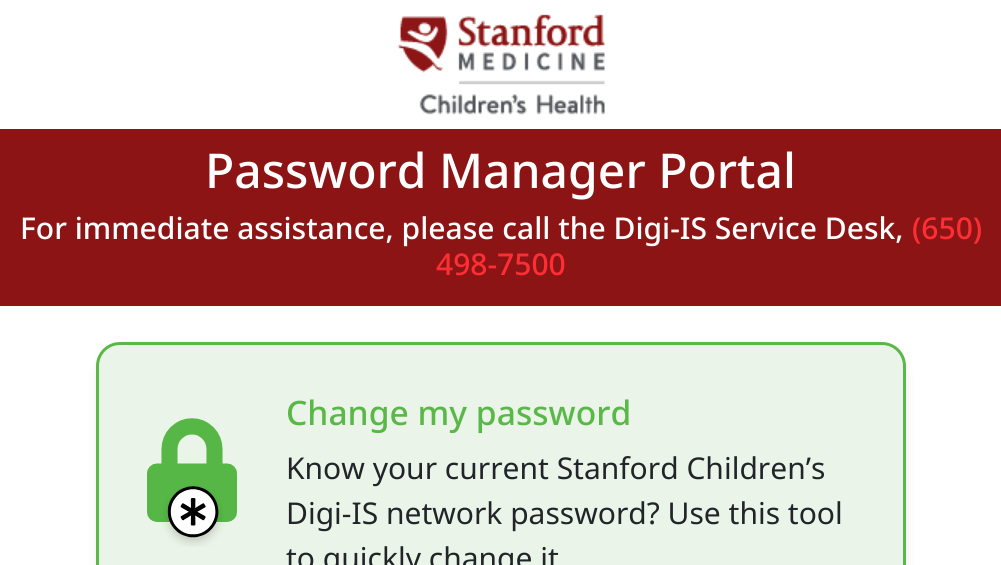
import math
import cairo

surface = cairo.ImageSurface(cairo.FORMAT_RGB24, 1001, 565)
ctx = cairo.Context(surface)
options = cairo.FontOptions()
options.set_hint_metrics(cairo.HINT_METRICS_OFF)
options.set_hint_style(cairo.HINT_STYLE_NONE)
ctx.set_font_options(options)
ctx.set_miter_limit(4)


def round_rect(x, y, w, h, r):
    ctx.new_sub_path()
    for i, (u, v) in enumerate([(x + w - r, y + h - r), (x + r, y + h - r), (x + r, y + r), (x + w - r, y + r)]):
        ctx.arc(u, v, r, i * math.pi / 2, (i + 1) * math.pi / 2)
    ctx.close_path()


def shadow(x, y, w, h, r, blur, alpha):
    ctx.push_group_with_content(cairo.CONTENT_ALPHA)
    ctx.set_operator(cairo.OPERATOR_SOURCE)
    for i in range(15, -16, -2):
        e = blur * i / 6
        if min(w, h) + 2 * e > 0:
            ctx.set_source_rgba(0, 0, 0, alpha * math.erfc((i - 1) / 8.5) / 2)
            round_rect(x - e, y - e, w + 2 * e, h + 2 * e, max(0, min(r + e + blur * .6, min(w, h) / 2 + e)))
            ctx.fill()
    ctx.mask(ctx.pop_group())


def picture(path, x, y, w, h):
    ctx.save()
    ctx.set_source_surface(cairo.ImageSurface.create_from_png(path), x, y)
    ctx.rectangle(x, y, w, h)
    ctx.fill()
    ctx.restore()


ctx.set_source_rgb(1, 1, 1)
ctx.paint()
picture("img1.png", 397, 14, 208, 101)
ctx.set_source_rgb(0.549, 0.082, 0.082)
ctx.rectangle(0, 129, 1001, 177)
ctx.fill()
ctx.select_font_face("Noto Sans Medium")
ctx.set_font_size(48)
ctx.set_source_rgb(1, 1, 1)
ctx.move_to(205, 188)
ctx.show_text("Password Manager Portal")
ctx.set_font_size(30)
ctx.move_to(20, 239)
ctx.show_text("For immediate assistance, please call the Digi-IS Service Desk,")
ctx.set_source_rgb(1, 0.18, 0.208)
ctx.move_to(912, 239)
ctx.show_text("(650)")
ctx.move_to(436, 275)
ctx.show_text("498-7500")
ctx.set_source_rgb(0, 0, 0)
shadow(96, 354, 810, 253, 24, 6, 0.07)
ctx.set_source_rgb(0.918, 0.957, 0.91)
round_rect(97.5, 343.5, 807, 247, 22.5)
ctx.fill_preserve()
ctx.set_source_rgb(0.353, 0.722, 0.282)
ctx.set_line_width(3)
ctx.stroke()
picture("img2.png", 147, 418, 90, 129)
ctx.set_font_size(33.6)
ctx.move_to(286, 425)
ctx.show_text("Change my password")
ctx.select_font_face("Noto Sans")
ctx.set_font_size(30)
ctx.set_source_rgb(0.129, 0.145, 0.161)
ctx.move_to(286, 479)
ctx.show_text("Know your current Stanford Children’s")
ctx.move_to(286, 524)
ctx.show_text("Digi-IS network password? Use this tool")
ctx.move_to(286, 569)
ctx.show_text("to quickly change it")
surface.write_to_png("page.png")
